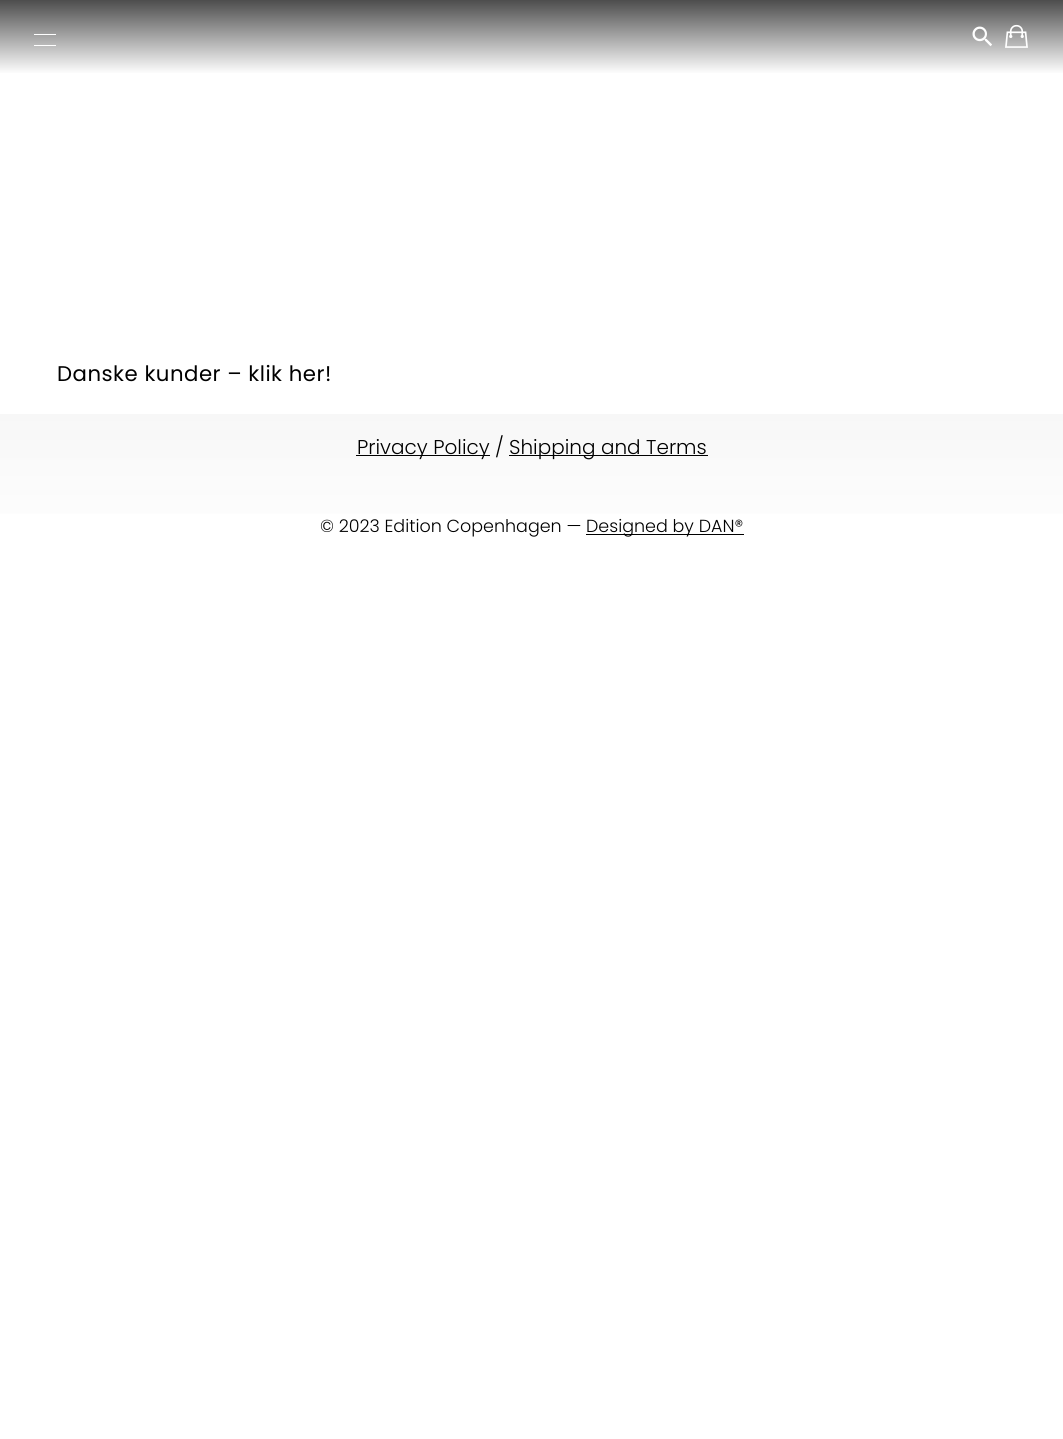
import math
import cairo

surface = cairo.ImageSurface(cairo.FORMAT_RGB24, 1063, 1439)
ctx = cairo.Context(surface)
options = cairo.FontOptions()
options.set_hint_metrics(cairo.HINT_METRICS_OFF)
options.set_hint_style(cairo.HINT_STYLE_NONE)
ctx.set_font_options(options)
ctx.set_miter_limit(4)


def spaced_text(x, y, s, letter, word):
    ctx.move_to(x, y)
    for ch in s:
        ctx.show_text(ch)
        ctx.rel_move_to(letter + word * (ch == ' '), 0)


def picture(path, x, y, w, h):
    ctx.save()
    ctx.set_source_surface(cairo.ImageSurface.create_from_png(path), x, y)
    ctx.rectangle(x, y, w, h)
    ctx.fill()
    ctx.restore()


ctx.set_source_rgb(1, 1, 1)
ctx.paint()
gradient = cairo.LinearGradient(532, 0, 532, 74)
gradient.add_color_stop_rgba(0, 0.302, 0.302, 0.302, 1)
gradient.add_color_stop_rgba(1, 1, 1, 1, 1)
ctx.set_source(gradient)
ctx.rectangle(0, 0, 1063, 73)
ctx.fill()
ctx.set_source_rgb(1, 1, 1)
ctx.rectangle(34, 34, 22, 1)
ctx.fill()
ctx.rectangle(34, 45, 22, 1)
ctx.fill()
picture("img1.png", 972, 26, 20, 21)
picture("img2.png", 1005, 24, 23, 24)
ctx.select_font_face("Poppins")
ctx.set_font_size(21.25)
ctx.set_source_rgb(0, 0, 0)
spaced_text(57, 381, "Danske kunder – klik her!", 0.5, 0)
gradient = cairo.LinearGradient(532, 559, 532, 414)
gradient.add_color_stop_rgba(0, 1, 1, 1, 1)
gradient.add_color_stop_rgba(1, 0.969, 0.969, 0.969, 1)
ctx.set_source(gradient)
ctx.rectangle(0, 414, 1063, 100)
ctx.fill()
ctx.set_source_rgb(0, 0, 0)
ctx.rectangle(356, 455, 134, 1)
ctx.fill()
ctx.select_font_face("Poppins Light")
ctx.set_font_size(20)
ctx.move_to(357, 454)
ctx.show_text("Privacy Policy /")
ctx.rectangle(509, 455, 199, 1)
ctx.fill()
ctx.move_to(509, 454)
ctx.show_text("Shipping and Terms")
ctx.set_font_size(17.5)
ctx.move_to(320, 532)
ctx.show_text("© 2023 Edition Copenhagen —")
ctx.rectangle(586, 534, 158, 1)
ctx.fill()
ctx.move_to(586, 532)
ctx.show_text("Designed by DAN®")
surface.write_to_png("page.png")
